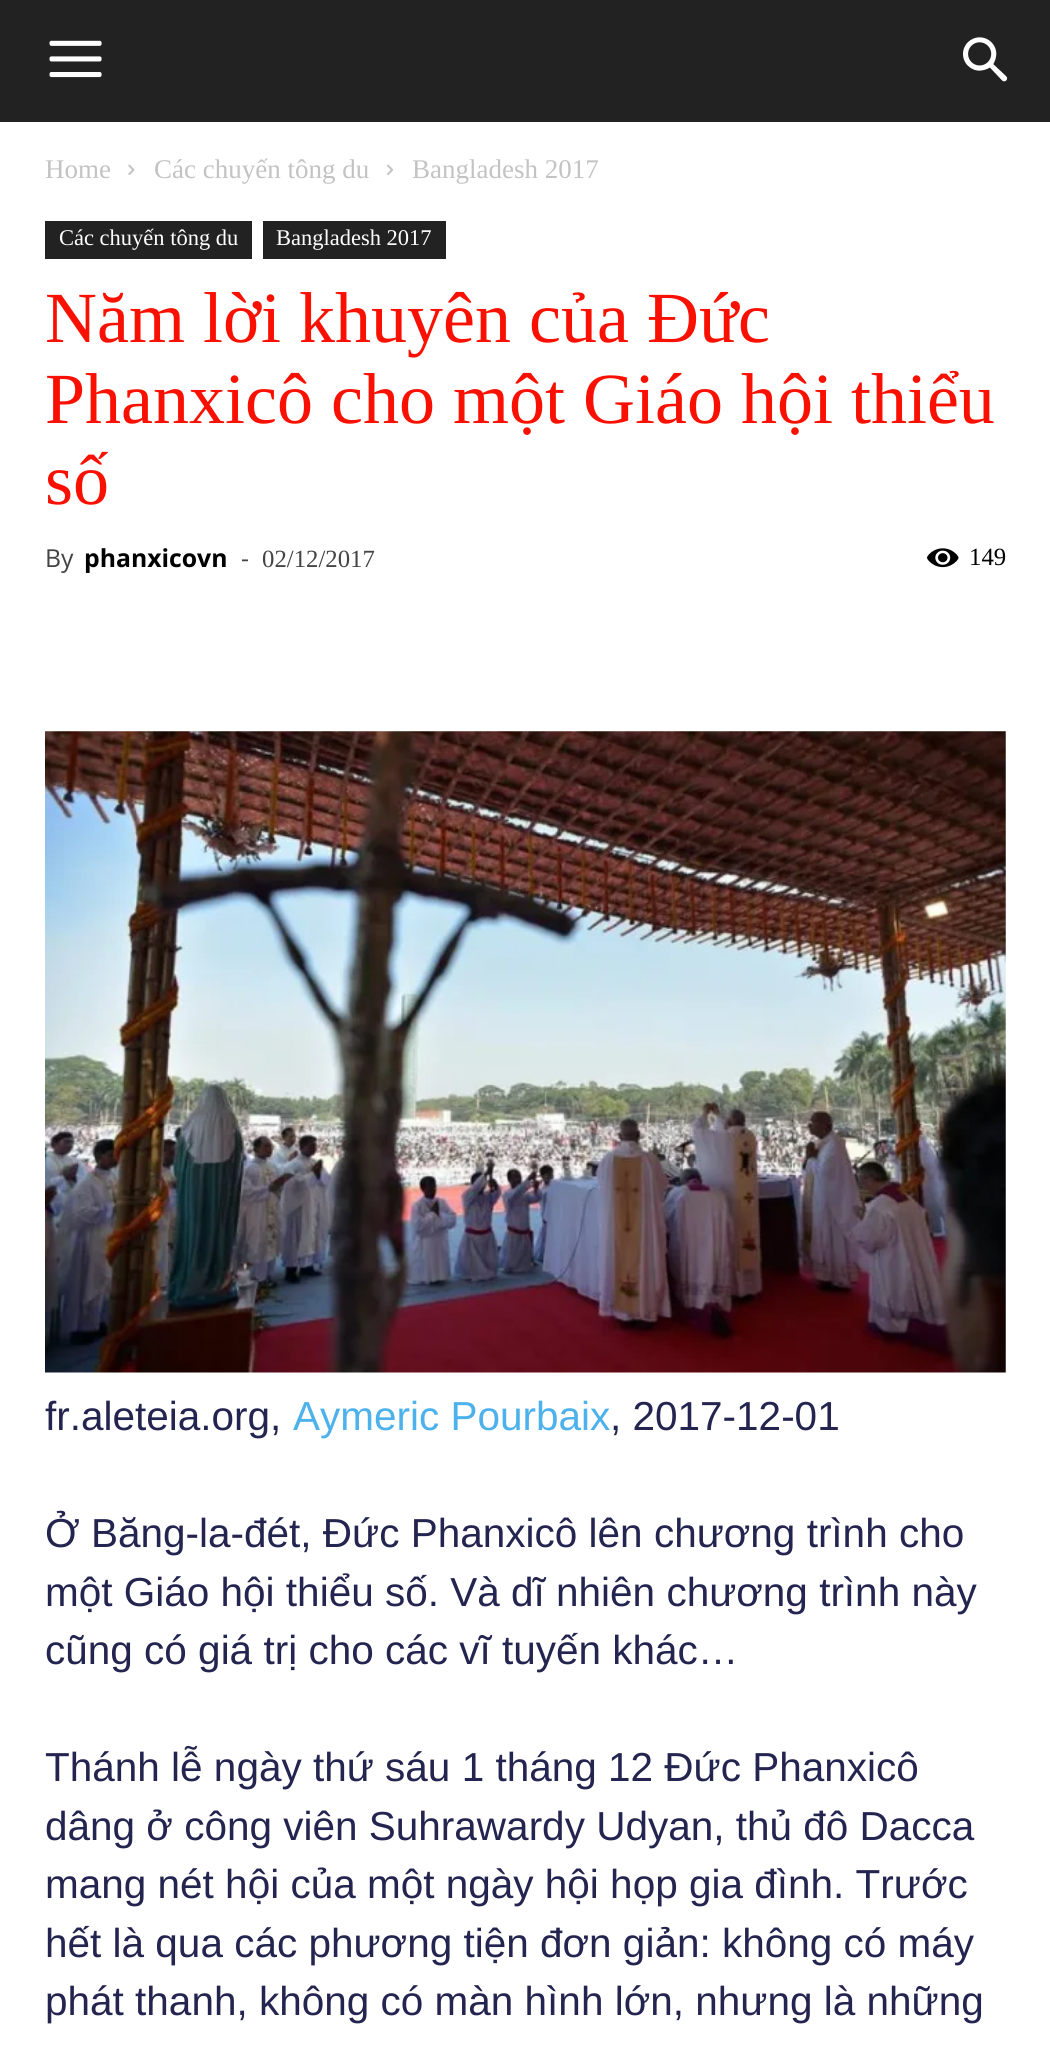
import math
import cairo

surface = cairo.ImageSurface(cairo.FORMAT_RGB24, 1050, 2047)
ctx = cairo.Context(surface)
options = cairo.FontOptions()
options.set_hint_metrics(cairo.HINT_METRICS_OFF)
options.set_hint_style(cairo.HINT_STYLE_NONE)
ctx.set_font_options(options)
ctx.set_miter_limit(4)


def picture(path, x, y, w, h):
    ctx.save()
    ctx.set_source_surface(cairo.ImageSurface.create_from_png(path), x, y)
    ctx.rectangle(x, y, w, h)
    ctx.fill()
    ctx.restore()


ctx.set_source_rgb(1, 1, 1)
ctx.paint()
ctx.set_source_rgb(0.133, 0.133, 0.133)
ctx.rectangle(0, 0, 1050, 122)
ctx.fill()
picture("img1.png", 49, 40, 53, 38)
picture("img2.png", 963, 37, 45, 45)
ctx.select_font_face("Liberation Serif")
ctx.set_font_size(27)
ctx.set_source_rgb(0.765, 0.765, 0.765)
ctx.move_to(45, 178)
ctx.show_text("Home")
picture("img3.png", 128, 164, 7, 11)
ctx.move_to(154, 178)
ctx.show_text("Các chuyến tông du")
picture("img4.png", 387, 164, 6, 11)
ctx.move_to(412, 178)
ctx.show_text("Bangladesh 2017")
ctx.set_source_rgb(0.133, 0.133, 0.133)
ctx.rectangle(45, 221, 207, 38)
ctx.fill()
ctx.set_font_size(22.5)
ctx.set_source_rgb(1, 1, 1)
ctx.move_to(59, 245)
ctx.show_text("Các chuyến tông du")
ctx.set_source_rgb(0.133, 0.133, 0.133)
ctx.rectangle(263, 221, 183, 38)
ctx.fill()
ctx.set_source_rgb(1, 1, 1)
ctx.move_to(276, 245)
ctx.show_text("Bangladesh 2017")
ctx.set_font_size(72)
ctx.set_source_rgb(0.976, 0.063, 0)
ctx.move_to(45, 342)
ctx.show_text("Năm lời khuyên của Đức")
ctx.move_to(45, 423)
ctx.show_text("Phanxicô cho một Giáo hội thiểu")
ctx.move_to(45, 504)
ctx.show_text("số")
ctx.select_font_face("Open Sans")
ctx.set_font_size(24.75)
ctx.set_source_rgb(0.267, 0.267, 0.267)
ctx.move_to(45, 567)
ctx.show_text("By")
ctx.select_font_face("Open Sans", cairo.FONT_SLANT_NORMAL, cairo.FONT_WEIGHT_BOLD)
ctx.set_source_rgb(0, 0, 0)
ctx.move_to(84, 567)
ctx.show_text("phanxicovn")
ctx.select_font_face("Open Sans")
ctx.set_source_rgb(0.267, 0.267, 0.267)
ctx.move_to(241, 567)
ctx.show_text("-")
ctx.select_font_face("Liberation Serif")
ctx.move_to(262, 567)
ctx.show_text("02/12/2017")
picture("img5.png", 927, 548, 32, 20)
ctx.set_source_rgb(0, 0, 0)
ctx.move_to(969, 565)
ctx.show_text("149")
picture("img6.png", 45, 731, 961, 642)
ctx.select_font_face("Liberation Sans")
ctx.set_font_size(40.5)
ctx.set_source_rgb(0.141, 0.141, 0.314)
ctx.move_to(45, 1430)
ctx.show_text("fr.aleteia.org,")
ctx.set_source_rgb(0.302, 0.698, 0.925)
ctx.move_to(293, 1430)
ctx.show_text("Aymeric Pourbaix")
ctx.set_source_rgb(0.141, 0.141, 0.314)
ctx.move_to(610, 1430)
ctx.show_text(", 2017-12-01")
ctx.move_to(45, 1547)
ctx.show_text("Ở Băng-la-đét, Đức Phanxicô lên chương trình cho")
ctx.move_to(45, 1606)
ctx.show_text("một Giáo hội thiểu số. Và dĩ nhiên chương trình này")
ctx.move_to(45, 1664)
ctx.show_text("cũng có giá trị cho các vĩ tuyến khác…")
ctx.move_to(45, 1781)
ctx.show_text("Thánh lễ ngày thứ sáu 1 tháng 12 Đức Phanxicô")
ctx.move_to(45, 1840)
ctx.show_text("dâng ở công viên Suhrawardy Udyan, thủ đô Dacca")
ctx.move_to(45, 1898)
ctx.show_text("mang nét hội của một ngày hội họp gia đình. Trước")
ctx.move_to(45, 1957)
ctx.show_text("hết là qua các phương tiện đơn giản: không có máy")
ctx.move_to(45, 2015)
ctx.show_text("phát thanh, không có màn hình lớn, nhưng là những")
surface.write_to_png("page.png")
